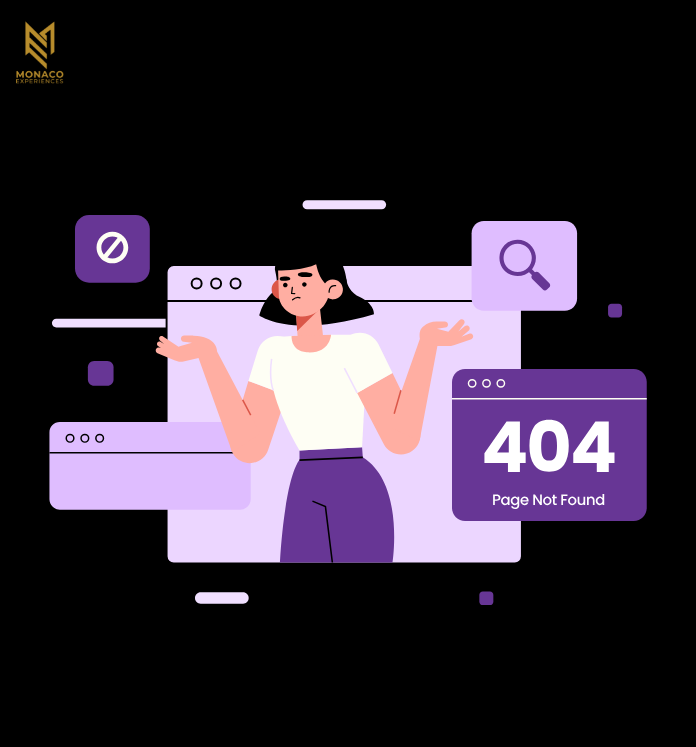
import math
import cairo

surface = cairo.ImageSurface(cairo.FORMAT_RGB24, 696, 747)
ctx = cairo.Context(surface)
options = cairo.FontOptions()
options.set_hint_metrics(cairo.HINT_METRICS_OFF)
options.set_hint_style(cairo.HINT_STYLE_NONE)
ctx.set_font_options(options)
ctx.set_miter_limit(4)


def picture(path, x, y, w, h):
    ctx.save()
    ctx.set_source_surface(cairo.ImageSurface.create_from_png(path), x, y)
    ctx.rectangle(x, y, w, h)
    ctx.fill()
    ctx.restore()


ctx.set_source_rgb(0, 0, 0)
ctx.paint()
picture("img1.png", 16, 21, 48, 63)
picture("img2.png", 49, 200, 598, 405)
surface.write_to_png("page.png")
